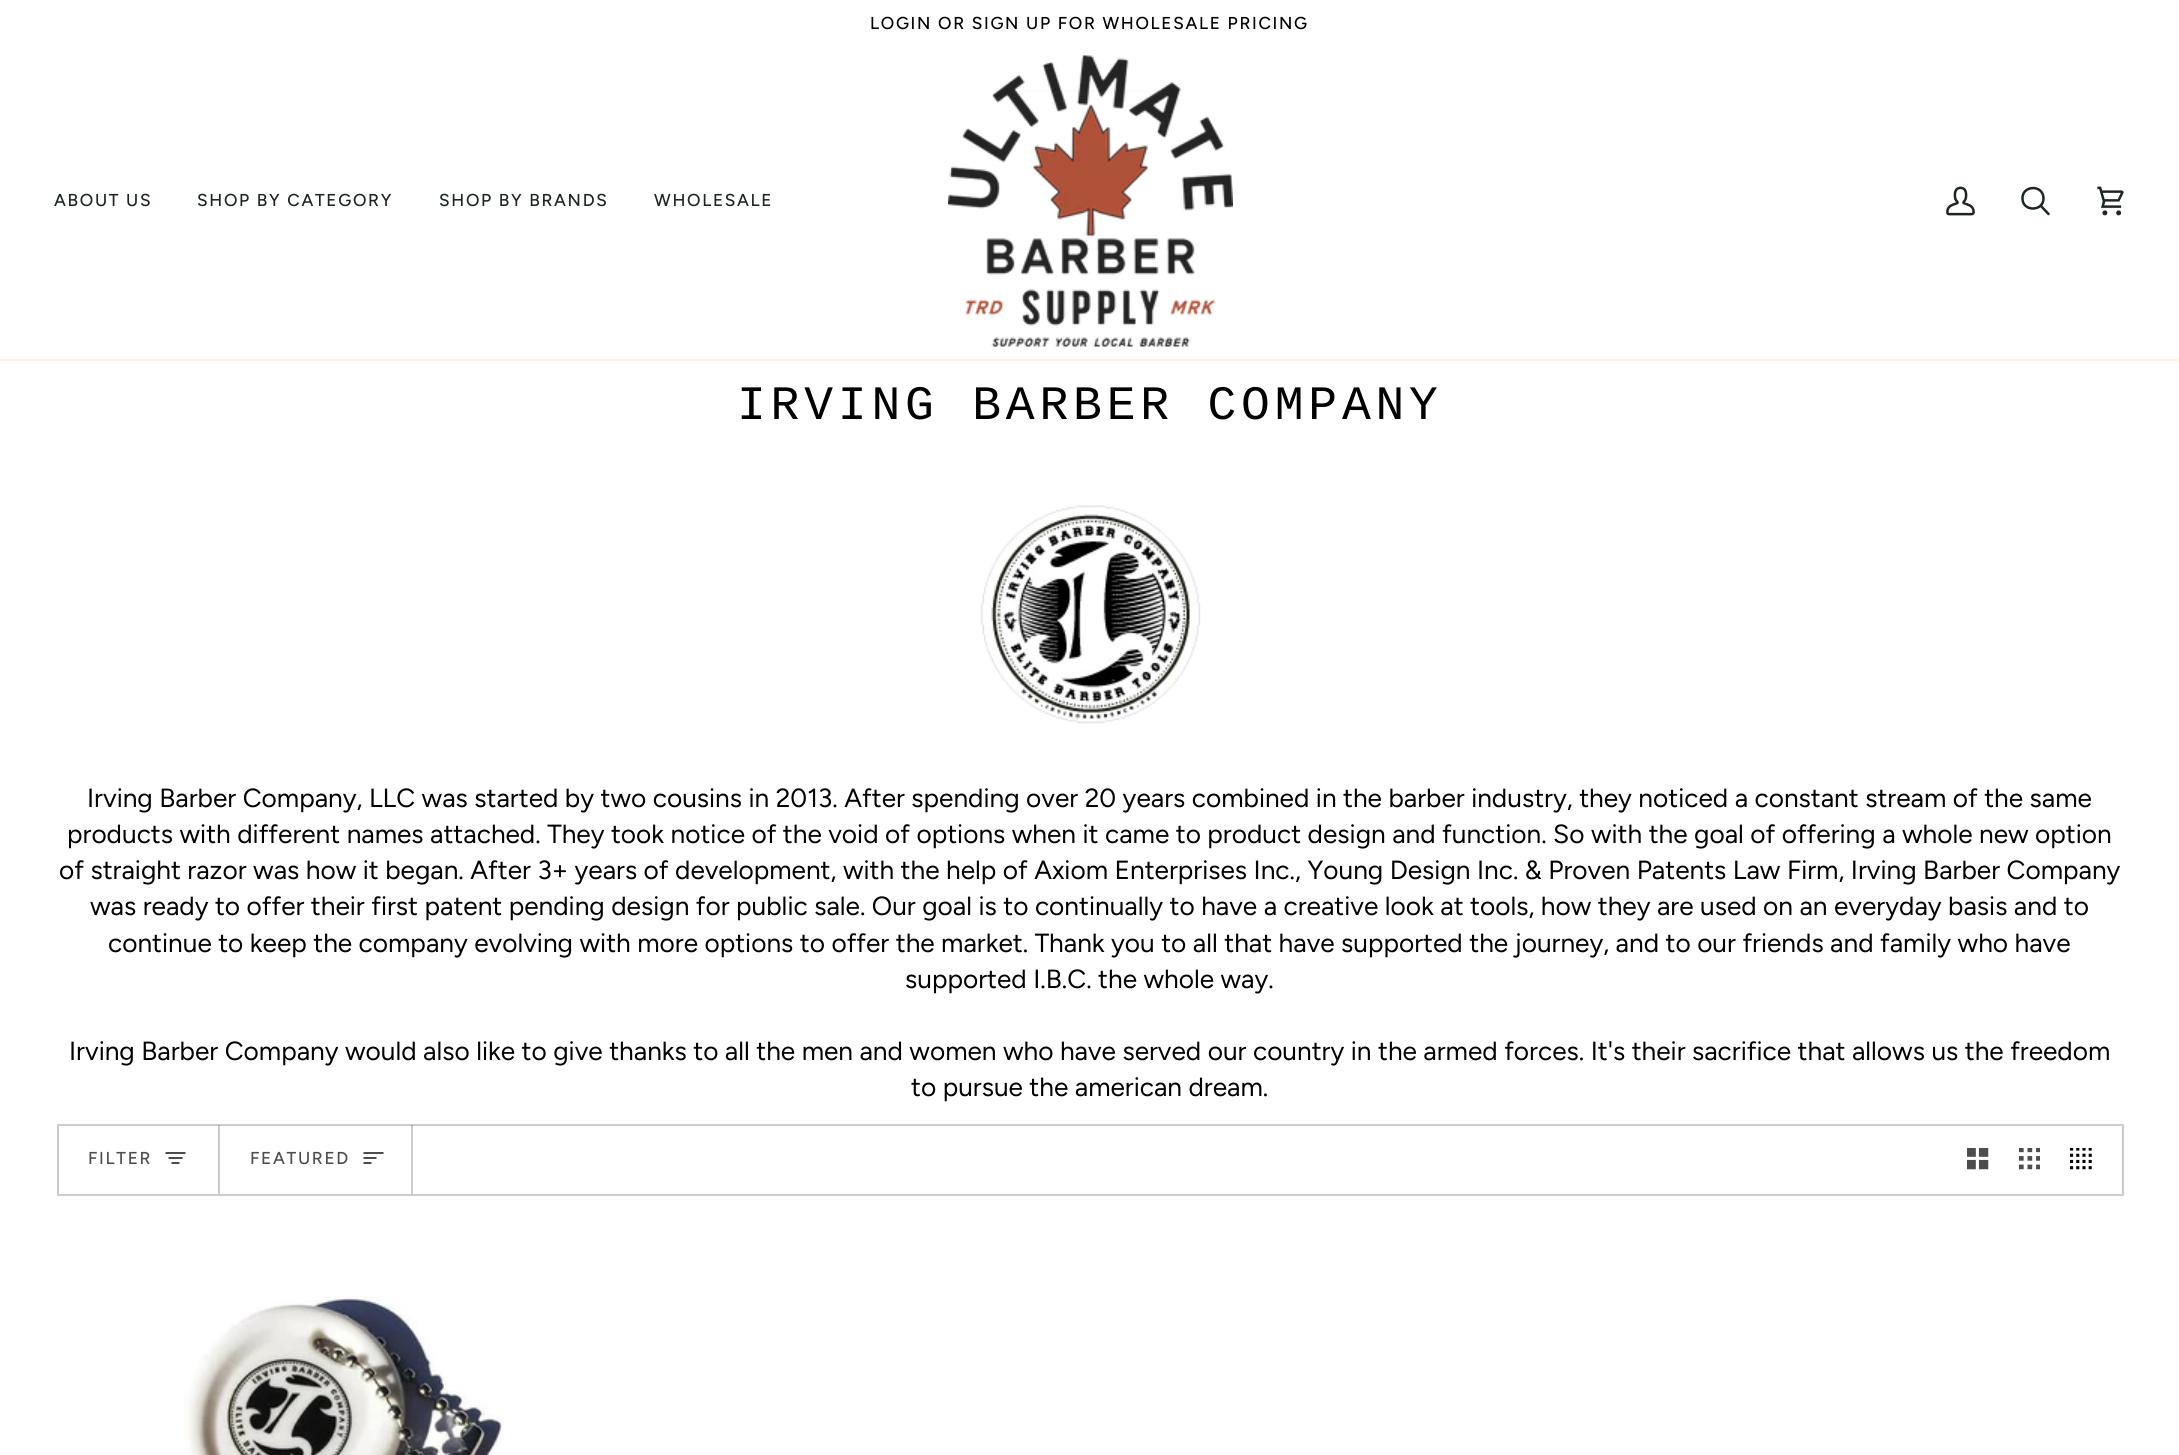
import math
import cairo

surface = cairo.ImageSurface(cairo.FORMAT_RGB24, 2179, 1455)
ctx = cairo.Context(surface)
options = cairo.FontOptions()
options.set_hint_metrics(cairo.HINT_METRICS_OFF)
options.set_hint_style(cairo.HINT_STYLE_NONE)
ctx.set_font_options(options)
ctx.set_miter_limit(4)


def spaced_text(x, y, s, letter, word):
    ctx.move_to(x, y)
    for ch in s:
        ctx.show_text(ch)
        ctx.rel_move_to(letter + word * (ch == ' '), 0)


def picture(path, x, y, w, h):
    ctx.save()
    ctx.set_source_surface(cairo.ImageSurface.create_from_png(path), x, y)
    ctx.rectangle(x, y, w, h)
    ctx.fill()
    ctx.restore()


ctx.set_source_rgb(1, 1, 1)
ctx.paint()
ctx.select_font_face("Figtree Medium")
ctx.set_font_size(17.25)
ctx.set_source_rgb(0, 0, 0)
spaced_text(870, 29, "LOGIN OR SIGN UP FOR WHOLESALE PRICING", 1.7, 0)
ctx.set_source_rgb(0.973, 0.941, 0.906)
ctx.rectangle(0, 359, 2179, 2)
ctx.fill()
ctx.set_source_rgb(0.114, 0.145, 0.137)
spaced_text(54, 206, "ABOUT US", 1.7, 0)
spaced_text(197, 206, "SHOP BY CATEGORY", 1.7, 0)
spaced_text(439, 206, "SHOP BY BRANDS", 1.7, 0)
spaced_text(654, 206, "WHOLESALE", 1.7, 0)
picture("img1.png", 948, 55, 285, 292)
picture("img2.png", 1946, 186, 29, 30)
ctx.new_path()
ctx.move_to(2043.5, 198.5)
ctx.curve_to(2043.5, 211.5, 2023, 212, 2022.5, 199)
ctx.curve_to(2021.5, 185, 2043.5, 184, 2043.5, 198.5)
ctx.close_path()
ctx.move_to(2048.5, 214)
ctx.line_to(2040.5, 205.5)
ctx.close_path()
ctx.set_line_width(2.5)
ctx.set_line_cap(cairo.LINE_CAP_ROUND)
ctx.set_line_join(cairo.LINE_JOIN_ROUND)
ctx.stroke()
picture("img3.png", 2097, 186, 27, 30)
ctx.select_font_face("Liberation Mono")
ctx.set_font_size(48)
ctx.set_source_rgb(0, 0, 0)
spaced_text(737, 419, "IRVING BARBER COMPANY", 4.8, 0)
picture("img4.png", 980, 505, 221, 219)
ctx.select_font_face("Figtree")
ctx.set_font_size(26.25)
ctx.move_to(87, 807)
ctx.show_text("Irving Barber Company, LLC was started by two cousins in 2013. After spending over 20 years combined in the barber industry, they noticed a constant stream of the same")
ctx.move_to(67, 843)
ctx.show_text("products with different names attached. They took notice of the void of options when it came to product design and function. So with the goal of offering a whole new option")
ctx.move_to(59, 879)
ctx.show_text("of straight razor was how it began. After 3+ years of development, with the help of Axiom Enterprises Inc., Young Design Inc. & Proven Patents Law Firm, Irving Barber Company")
ctx.move_to(90, 915)
ctx.show_text("was ready to offer their first patent pending design for public sale. Our goal is to continually to have a creative look at tools, how they are used on an everyday basis and to")
ctx.move_to(108, 952)
ctx.show_text("continue to keep the company evolving with more options to offer the market. Thank you to all that have supported the journey, and to our friends and family who have")
ctx.move_to(905, 988)
ctx.show_text("supported I.B.C. the whole way.")
ctx.move_to(69, 1060)
ctx.show_text("Irving Barber Company would also like to give thanks to all the men and women who have served our country in the armed forces. It's their sacrifice that allows us the freedom")
ctx.move_to(911, 1096)
ctx.show_text("to pursue the american dream.")
ctx.rectangle(58, 1125, 2065, 70)
ctx.set_source_rgb(0.8, 0.8, 0.8)
ctx.set_line_width(2)
ctx.set_line_cap(cairo.LINE_CAP_BUTT)
ctx.set_line_join(cairo.LINE_JOIN_MITER)
ctx.stroke()
ctx.set_source_rgba(0, 0, 0, 0.2)
ctx.rectangle(218, 1125, 2, 69)
ctx.fill()
ctx.select_font_face("Figtree Medium")
ctx.set_font_size(17.25)
ctx.set_source_rgb(0.302, 0.302, 0.302)
spaced_text(88, 1164, "FILTER", 1.7, 0)
ctx.new_path()
ctx.move_to(184.5, 1153)
ctx.line_to(166.5, 1153)
ctx.move_to(181.5, 1158)
ctx.line_to(169.5, 1158)
ctx.move_to(178.5, 1163)
ctx.line_to(172.5, 1163)
ctx.set_line_cap(cairo.LINE_CAP_SQUARE)
ctx.stroke()
ctx.set_source_rgba(0, 0, 0, 0.2)
ctx.rectangle(411, 1125, 2, 69)
ctx.fill()
ctx.set_source_rgb(0.302, 0.302, 0.302)
spaced_text(250, 1164, "FEATURED", 1.7, 0)
ctx.new_path()
ctx.move_to(382.5, 1153)
ctx.line_to(364.5, 1153)
ctx.move_to(375.5, 1158)
ctx.line_to(364.5, 1158)
ctx.move_to(370.5, 1163)
ctx.line_to(364.5, 1163)
ctx.stroke()
picture("img5.png", 1967, 1148, 22, 22)
picture("img6.png", 2019, 1148, 21, 22)
picture("img7.png", 2070, 1148, 22, 22)
picture("img8.png", 184, 1295, 318, 160)
surface.write_to_png("page.png")
